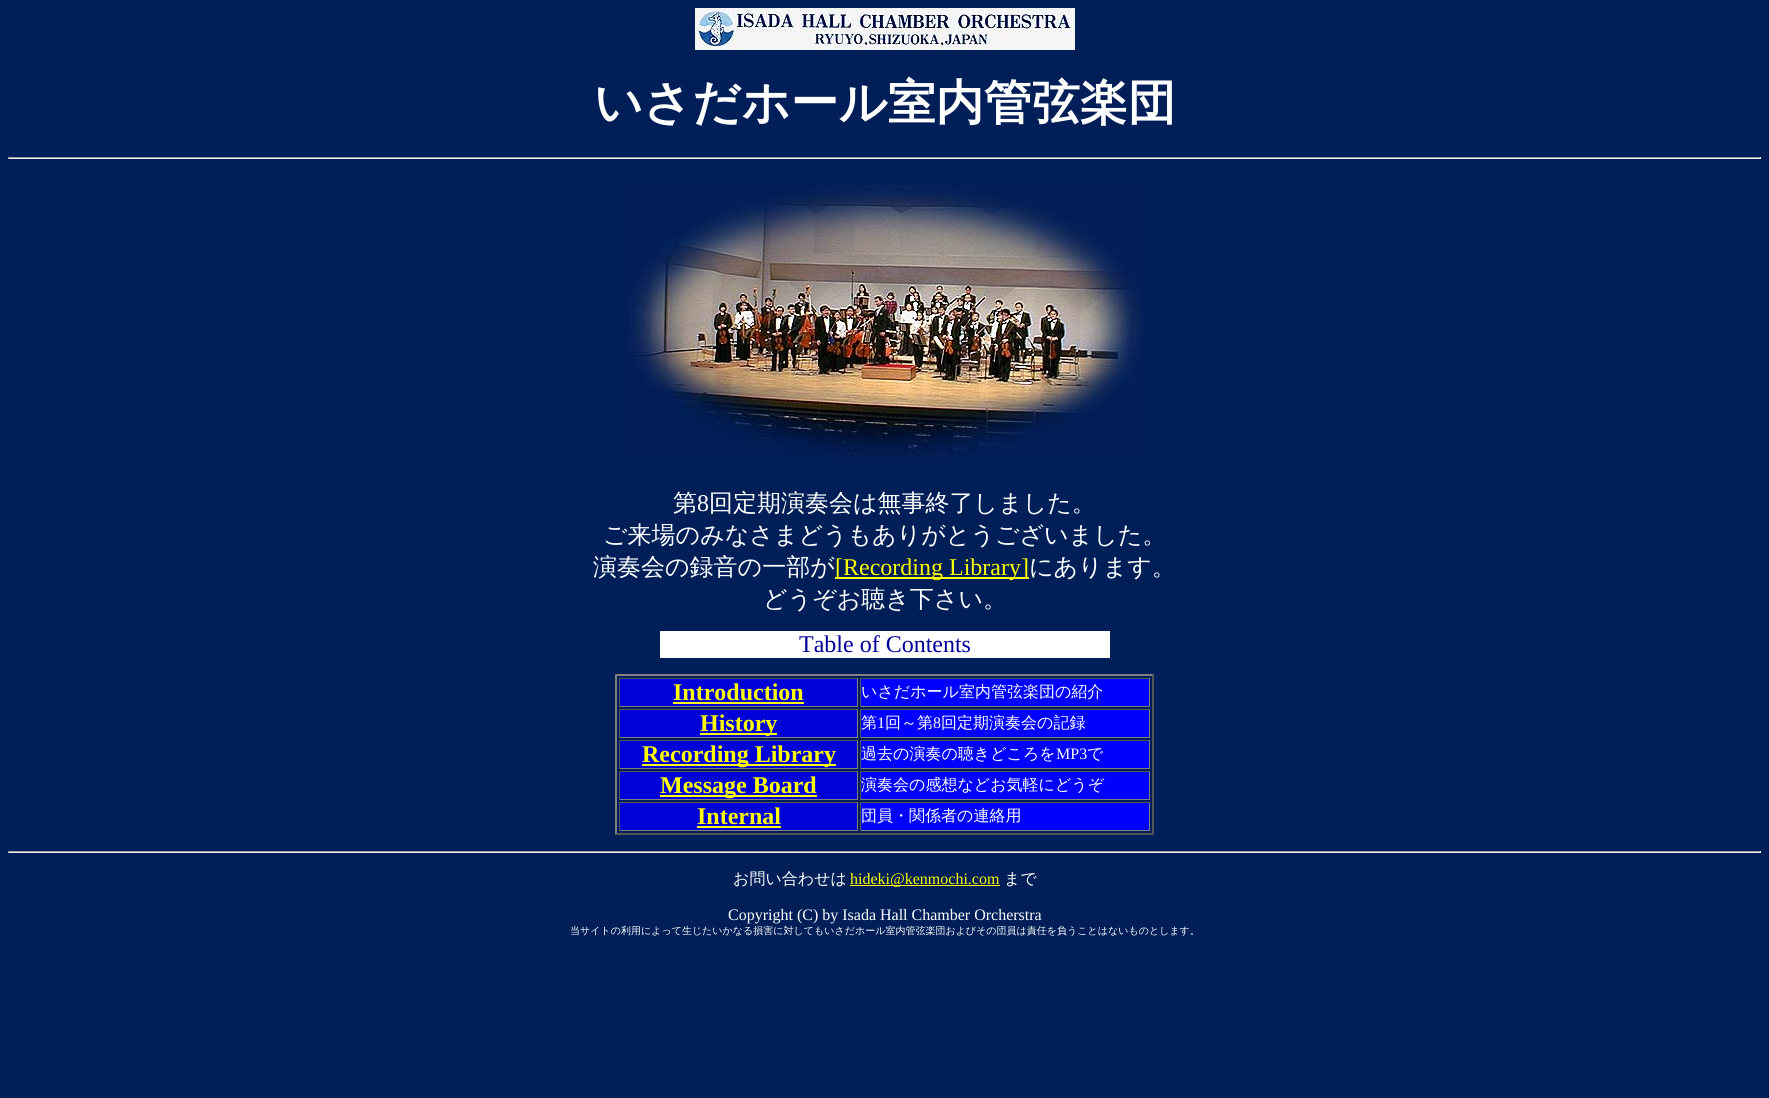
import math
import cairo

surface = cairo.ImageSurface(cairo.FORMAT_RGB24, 1769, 1098)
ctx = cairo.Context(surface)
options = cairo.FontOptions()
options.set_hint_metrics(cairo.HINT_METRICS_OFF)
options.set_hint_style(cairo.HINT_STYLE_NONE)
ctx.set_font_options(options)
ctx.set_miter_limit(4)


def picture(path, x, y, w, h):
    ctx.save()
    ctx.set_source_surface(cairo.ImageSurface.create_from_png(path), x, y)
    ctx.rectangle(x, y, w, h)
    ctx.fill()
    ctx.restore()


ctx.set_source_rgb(0, 0.118, 0.341)
ctx.paint()
picture("img1.png", 695, 8, 380, 42)
ctx.select_font_face("WenQuanYi Zen Hei", cairo.FONT_SLANT_NORMAL, cairo.FONT_WEIGHT_BOLD)
ctx.set_font_size(48)
ctx.set_source_rgb(1, 1, 1)
ctx.move_to(594, 119)
ctx.show_text("いさだホール室内管弦楽団")
ctx.set_source_rgb(0.624, 0.624, 0.624)
ctx.rectangle(8, 157, 1753, 1)
ctx.fill()
ctx.set_source_rgb(0.933, 0.933, 0.933)
ctx.rectangle(1760, 157, 1, 2)
ctx.fill()
ctx.rectangle(8, 158, 1753, 1)
ctx.fill()
ctx.set_source_rgb(0.624, 0.624, 0.624)
ctx.rectangle(8, 157, 1, 2)
ctx.fill()
picture("img2.png", 629, 185, 514, 273)
ctx.select_font_face("WenQuanYi Zen Hei Medium")
ctx.set_font_size(24)
ctx.set_source_rgb(1, 1, 1)
ctx.move_to(673, 511)
ctx.show_text("第")
ctx.select_font_face("Liberation Serif")
ctx.move_to(697, 511)
ctx.show_text("8")
ctx.select_font_face("WenQuanYi Zen Hei Medium")
ctx.move_to(709, 511)
ctx.show_text("回定期演奏会は無事終了しました。")
ctx.move_to(603, 543)
ctx.show_text("ご来場のみなさまどうもありがとうございました。")
ctx.move_to(593, 575)
ctx.show_text("演奏会の録音の一部が")
ctx.set_source_rgb(1, 1, 0)
ctx.rectangle(835, 577, 194, 2)
ctx.fill()
ctx.select_font_face("Liberation Serif")
ctx.move_to(835, 575)
ctx.show_text("[Recording Library]")
ctx.select_font_face("WenQuanYi Zen Hei Medium")
ctx.set_source_rgb(1, 1, 1)
ctx.move_to(1029, 575)
ctx.show_text("にあります。")
ctx.move_to(763, 607)
ctx.show_text("どうぞお聴き下さい。")
ctx.rectangle(660, 631, 450, 27)
ctx.fill()
ctx.select_font_face("Liberation Serif")
ctx.set_source_rgb(0, 0, 0.6)
ctx.move_to(799, 652)
ctx.show_text("Table of Contents")
ctx.set_source_rgb(0.502, 0.502, 0.502)
ctx.new_path()
ctx.move_to(615, 674)
ctx.line_to(1154, 674)
ctx.line_to(1152, 676)
ctx.line_to(617, 676)
ctx.close_path()
ctx.fill()
ctx.set_source_rgb(0.333, 0.333, 0.333)
ctx.new_path()
ctx.move_to(1154, 674)
ctx.line_to(1154, 835)
ctx.line_to(1152, 833)
ctx.line_to(1152, 676)
ctx.close_path()
ctx.fill()
ctx.new_path()
ctx.move_to(1154, 835)
ctx.line_to(615, 835)
ctx.line_to(617, 833)
ctx.line_to(1152, 833)
ctx.close_path()
ctx.fill()
ctx.set_source_rgb(0.502, 0.502, 0.502)
ctx.new_path()
ctx.move_to(615, 835)
ctx.line_to(615, 674)
ctx.line_to(617, 676)
ctx.line_to(617, 833)
ctx.close_path()
ctx.fill()
ctx.set_source_rgb(0, 0, 0.851)
ctx.rectangle(620, 679, 237, 27)
ctx.fill()
ctx.set_source_rgb(0.333, 0.333, 0.333)
ctx.rectangle(619, 678, 239, 1)
ctx.fill()
ctx.set_source_rgb(0.502, 0.502, 0.502)
ctx.rectangle(857, 678, 1, 29)
ctx.fill()
ctx.rectangle(619, 706, 239, 1)
ctx.fill()
ctx.set_source_rgb(0.333, 0.333, 0.333)
ctx.rectangle(619, 678, 1, 29)
ctx.fill()
ctx.select_font_face("Liberation Serif", cairo.FONT_SLANT_NORMAL, cairo.FONT_WEIGHT_BOLD)
ctx.set_source_rgb(1, 1, 0)
ctx.move_to(673, 700)
ctx.show_text("Introduction")
ctx.rectangle(673, 702, 131, 2)
ctx.fill()
ctx.set_source_rgb(0, 0, 1)
ctx.rectangle(861, 679, 288, 27)
ctx.fill()
ctx.set_source_rgb(0.333, 0.333, 0.333)
ctx.rectangle(860, 678, 290, 1)
ctx.fill()
ctx.set_source_rgb(0.502, 0.502, 0.502)
ctx.rectangle(1149, 678, 1, 29)
ctx.fill()
ctx.rectangle(860, 706, 290, 1)
ctx.fill()
ctx.set_source_rgb(0.333, 0.333, 0.333)
ctx.rectangle(860, 678, 1, 29)
ctx.fill()
ctx.select_font_face("WenQuanYi Zen Hei Medium")
ctx.set_font_size(16)
ctx.set_source_rgb(1, 1, 1)
ctx.move_to(861, 697)
ctx.show_text("いさだホール室内管弦楽団の紹介")
ctx.set_source_rgb(0, 0, 0.851)
ctx.rectangle(620, 710, 237, 27)
ctx.fill()
ctx.set_source_rgb(0.333, 0.333, 0.333)
ctx.rectangle(619, 709, 239, 1)
ctx.fill()
ctx.set_source_rgb(0.502, 0.502, 0.502)
ctx.rectangle(857, 709, 1, 29)
ctx.fill()
ctx.rectangle(619, 737, 239, 1)
ctx.fill()
ctx.set_source_rgb(0.333, 0.333, 0.333)
ctx.rectangle(619, 709, 1, 29)
ctx.fill()
ctx.set_source_rgb(1, 1, 0)
ctx.rectangle(700, 733, 77, 2)
ctx.fill()
ctx.select_font_face("Liberation Serif", cairo.FONT_SLANT_NORMAL, cairo.FONT_WEIGHT_BOLD)
ctx.set_font_size(24)
ctx.move_to(700, 731)
ctx.show_text("History")
ctx.set_source_rgb(0, 0, 1)
ctx.rectangle(861, 710, 288, 27)
ctx.fill()
ctx.set_source_rgb(0.333, 0.333, 0.333)
ctx.rectangle(860, 709, 290, 1)
ctx.fill()
ctx.set_source_rgb(0.502, 0.502, 0.502)
ctx.rectangle(1149, 709, 1, 29)
ctx.fill()
ctx.rectangle(860, 737, 290, 1)
ctx.fill()
ctx.set_source_rgb(0.333, 0.333, 0.333)
ctx.rectangle(860, 709, 1, 29)
ctx.fill()
ctx.select_font_face("WenQuanYi Zen Hei Medium")
ctx.set_font_size(16)
ctx.set_source_rgb(1, 1, 1)
ctx.move_to(861, 728)
ctx.show_text("第")
ctx.select_font_face("Liberation Serif")
ctx.move_to(877, 728)
ctx.show_text("1")
ctx.select_font_face("WenQuanYi Zen Hei Medium")
ctx.move_to(885, 728)
ctx.show_text("回～第")
ctx.select_font_face("Liberation Serif")
ctx.move_to(933, 728)
ctx.show_text("8")
ctx.select_font_face("WenQuanYi Zen Hei Medium")
ctx.move_to(941, 728)
ctx.show_text("回定期演奏会の記録")
ctx.set_source_rgb(0, 0, 0.851)
ctx.rectangle(620, 741, 237, 27)
ctx.fill()
ctx.set_source_rgb(0.333, 0.333, 0.333)
ctx.rectangle(619, 740, 239, 1)
ctx.fill()
ctx.set_source_rgb(0.502, 0.502, 0.502)
ctx.rectangle(857, 740, 1, 29)
ctx.fill()
ctx.rectangle(619, 768, 239, 1)
ctx.fill()
ctx.set_source_rgb(0.333, 0.333, 0.333)
ctx.rectangle(619, 740, 1, 29)
ctx.fill()
ctx.set_source_rgb(1, 1, 0)
ctx.rectangle(642, 764, 194, 2)
ctx.fill()
ctx.select_font_face("Liberation Serif", cairo.FONT_SLANT_NORMAL, cairo.FONT_WEIGHT_BOLD)
ctx.set_font_size(24)
ctx.move_to(642, 762)
ctx.show_text("Recording Library")
ctx.set_source_rgb(0, 0, 1)
ctx.rectangle(861, 741, 288, 27)
ctx.fill()
ctx.set_source_rgb(0.333, 0.333, 0.333)
ctx.rectangle(860, 740, 290, 1)
ctx.fill()
ctx.set_source_rgb(0.502, 0.502, 0.502)
ctx.rectangle(1149, 740, 1, 29)
ctx.fill()
ctx.rectangle(860, 768, 290, 1)
ctx.fill()
ctx.set_source_rgb(0.333, 0.333, 0.333)
ctx.rectangle(860, 740, 1, 29)
ctx.fill()
ctx.select_font_face("WenQuanYi Zen Hei Medium")
ctx.set_font_size(16)
ctx.set_source_rgb(1, 1, 1)
ctx.move_to(861, 759)
ctx.show_text("過去の演奏の聴きどころを")
ctx.select_font_face("Liberation Serif")
ctx.move_to(1056, 759)
ctx.show_text("MP3")
ctx.select_font_face("WenQuanYi Zen Hei Medium")
ctx.move_to(1087, 759)
ctx.show_text("で")
ctx.set_source_rgb(0, 0, 0.851)
ctx.rectangle(620, 772, 237, 27)
ctx.fill()
ctx.set_source_rgb(0.333, 0.333, 0.333)
ctx.rectangle(619, 771, 239, 1)
ctx.fill()
ctx.set_source_rgb(0.502, 0.502, 0.502)
ctx.rectangle(857, 771, 1, 29)
ctx.fill()
ctx.rectangle(619, 799, 239, 1)
ctx.fill()
ctx.set_source_rgb(0.333, 0.333, 0.333)
ctx.rectangle(619, 771, 1, 29)
ctx.fill()
ctx.set_source_rgb(1, 1, 0)
ctx.rectangle(660, 795, 157, 2)
ctx.fill()
ctx.select_font_face("Liberation Serif", cairo.FONT_SLANT_NORMAL, cairo.FONT_WEIGHT_BOLD)
ctx.set_font_size(24)
ctx.move_to(660, 793)
ctx.show_text("Message Board")
ctx.set_source_rgb(0, 0, 1)
ctx.rectangle(861, 772, 288, 27)
ctx.fill()
ctx.set_source_rgb(0.333, 0.333, 0.333)
ctx.rectangle(860, 771, 290, 1)
ctx.fill()
ctx.set_source_rgb(0.502, 0.502, 0.502)
ctx.rectangle(1149, 771, 1, 29)
ctx.fill()
ctx.rectangle(860, 799, 290, 1)
ctx.fill()
ctx.set_source_rgb(0.333, 0.333, 0.333)
ctx.rectangle(860, 771, 1, 29)
ctx.fill()
ctx.select_font_face("WenQuanYi Zen Hei Medium")
ctx.set_font_size(16)
ctx.set_source_rgb(1, 1, 1)
ctx.move_to(861, 790)
ctx.show_text("演奏会の感想などお気軽にどうぞ")
ctx.set_source_rgb(0, 0, 0.851)
ctx.rectangle(620, 803, 237, 27)
ctx.fill()
ctx.set_source_rgb(0.333, 0.333, 0.333)
ctx.rectangle(619, 802, 239, 1)
ctx.fill()
ctx.set_source_rgb(0.502, 0.502, 0.502)
ctx.rectangle(857, 802, 1, 29)
ctx.fill()
ctx.rectangle(619, 830, 239, 1)
ctx.fill()
ctx.set_source_rgb(0.333, 0.333, 0.333)
ctx.rectangle(619, 802, 1, 29)
ctx.fill()
ctx.select_font_face("Liberation Serif", cairo.FONT_SLANT_NORMAL, cairo.FONT_WEIGHT_BOLD)
ctx.set_font_size(24)
ctx.set_source_rgb(1, 1, 0)
ctx.move_to(697, 824)
ctx.show_text("Internal")
ctx.rectangle(697, 826, 84, 2)
ctx.fill()
ctx.set_source_rgb(0, 0, 1)
ctx.rectangle(861, 803, 288, 27)
ctx.fill()
ctx.set_source_rgb(0.333, 0.333, 0.333)
ctx.rectangle(860, 802, 290, 1)
ctx.fill()
ctx.set_source_rgb(0.502, 0.502, 0.502)
ctx.rectangle(1149, 802, 1, 29)
ctx.fill()
ctx.rectangle(860, 830, 290, 1)
ctx.fill()
ctx.set_source_rgb(0.333, 0.333, 0.333)
ctx.rectangle(860, 802, 1, 29)
ctx.fill()
ctx.select_font_face("WenQuanYi Zen Hei Medium")
ctx.set_font_size(16)
ctx.set_source_rgb(1, 1, 1)
ctx.move_to(861, 821)
ctx.show_text("団員・関係者の連絡用")
ctx.set_source_rgb(0.624, 0.624, 0.624)
ctx.rectangle(8, 851, 1753, 1)
ctx.fill()
ctx.set_source_rgb(0.933, 0.933, 0.933)
ctx.rectangle(1760, 851, 1, 2)
ctx.fill()
ctx.rectangle(8, 852, 1753, 1)
ctx.fill()
ctx.set_source_rgb(0.624, 0.624, 0.624)
ctx.rectangle(8, 851, 1, 2)
ctx.fill()
ctx.set_source_rgb(1, 1, 1)
ctx.move_to(733, 884)
ctx.show_text("お問い合わせは")
ctx.set_source_rgb(1, 1, 0)
ctx.rectangle(850, 885, 150, 1)
ctx.fill()
ctx.select_font_face("Liberation Serif")
ctx.move_to(850, 884)
ctx.show_text("hideki@kenmochi.com")
ctx.select_font_face("WenQuanYi Zen Hei Medium")
ctx.set_source_rgb(1, 1, 1)
ctx.move_to(1004, 884)
ctx.show_text("まで")
ctx.select_font_face("Liberation Serif")
ctx.move_to(728, 920)
ctx.show_text("Copyright (C) by Isada Hall Chamber Orcherstra")
ctx.select_font_face("WenQuanYi Zen Hei Medium")
ctx.set_font_size(10)
ctx.move_to(570, 934)
ctx.show_text("当サイトの利用によって生じたいかなる損害に対してもいさだホール室内管弦楽団およびその団員は責任を負うことはないものとします。")
surface.write_to_png("page.png")
